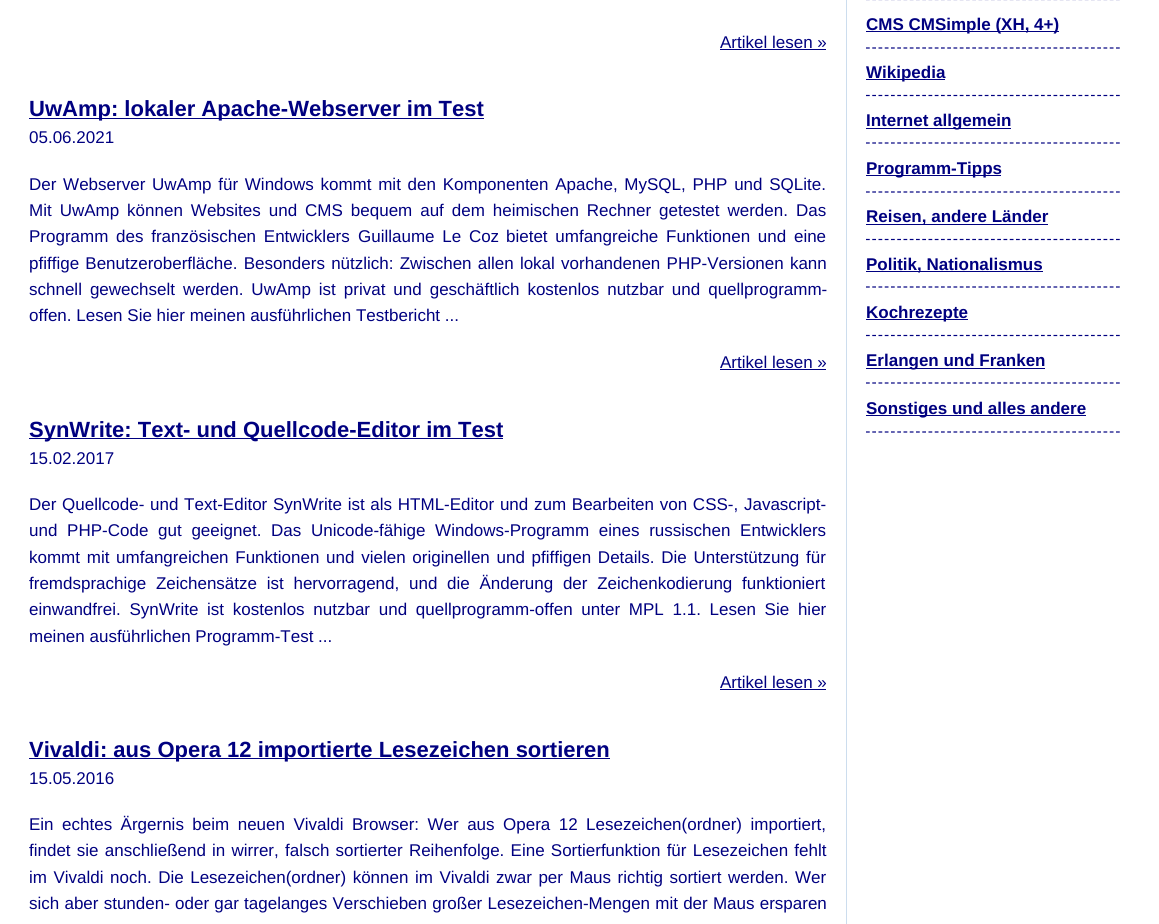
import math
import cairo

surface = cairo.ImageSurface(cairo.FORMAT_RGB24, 1159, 924)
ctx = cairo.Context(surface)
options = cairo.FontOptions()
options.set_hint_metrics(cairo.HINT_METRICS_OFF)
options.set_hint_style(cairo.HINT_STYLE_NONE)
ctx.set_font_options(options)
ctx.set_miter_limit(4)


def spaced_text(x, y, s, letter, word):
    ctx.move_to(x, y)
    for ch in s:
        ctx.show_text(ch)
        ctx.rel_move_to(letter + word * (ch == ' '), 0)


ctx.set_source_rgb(1, 1, 1)
ctx.paint()
ctx.select_font_face("Liberation Sans")
ctx.set_font_size(17)
ctx.set_source_rgb(0, 0, 0.502)
ctx.move_to(720, 48)
ctx.show_text("Artikel lesen »")
ctx.rectangle(720, 49, 106, 1)
ctx.fill()
ctx.rectangle(29, 118, 455, 1)
ctx.fill()
ctx.select_font_face("Liberation Sans", cairo.FONT_SLANT_NORMAL, cairo.FONT_WEIGHT_BOLD)
ctx.set_font_size(22)
ctx.move_to(29, 116)
ctx.show_text("UwAmp: lokaler Apache-Webserver im Test")
ctx.select_font_face("Liberation Sans")
ctx.set_font_size(17)
ctx.move_to(29, 143)
ctx.show_text("05.06.2021")
spaced_text(29, 190, "Der Webserver UwAmp für Windows kommt mit den Komponenten Apache, MySQL, PHP und SQLite.", 0, 2)
spaced_text(29, 216, "Mit UwAmp können Websites und CMS bequem auf dem heimischen Rechner getestet werden. Das", 0, 3.25)
spaced_text(29, 242, "Programm des französischen Entwicklers", 0, 3)
spaced_text(358, 242, "Guillaume Le Coz", 0, 3)
spaced_text(506, 242, "bietet umfangreiche Funktionen und eine", 0, 3)
spaced_text(29, 269, "pfiffige Benutzeroberfläche. Besonders nützlich: Zwischen allen lokal vorhandenen PHP-Versionen kann", 0, 1.5)
spaced_text(29, 295, "schnell gewechselt werden. UwAmp ist privat und geschäftlich kostenlos nutzbar und quellprogramm-", 0, 3.25)
ctx.move_to(29, 321)
ctx.show_text("offen. Lesen Sie hier meinen ausführlichen Testbericht ...")
ctx.move_to(720, 368)
ctx.show_text("Artikel lesen »")
ctx.rectangle(720, 369, 106, 1)
ctx.fill()
ctx.rectangle(29, 438, 474, 1)
ctx.fill()
ctx.select_font_face("Liberation Sans", cairo.FONT_SLANT_NORMAL, cairo.FONT_WEIGHT_BOLD)
ctx.set_font_size(22)
ctx.move_to(29, 437)
ctx.show_text("SynWrite: Text- und Quellcode-Editor im Test")
ctx.select_font_face("Liberation Sans")
ctx.set_font_size(17)
ctx.move_to(29, 464)
ctx.show_text("15.02.2017")
spaced_text(29, 510, "Der Quellcode- und Text-Editor SynWrite ist als HTML-Editor und zum Bearbeiten von CSS-, Javascript-", 0, 1)
spaced_text(29, 536, "und PHP-Code gut geeignet. Das Unicode-fähige Windows-Programm eines russischen Entwicklers", 0, 5)
spaced_text(29, 563, "kommt mit umfangreichen Funktionen und vielen originellen und pfiffigen Details. Die Unterstützung für", 0, 2)
spaced_text(29, 589, "fremdsprachige Zeichensätze ist hervorragend, und die Änderung der Zeichenkodierung funktioniert", 0, 5)
spaced_text(29, 615, "einwandfrei. SynWrite ist kostenlos nutzbar und quellprogramm-offen unter MPL 1.1. Lesen Sie hier", 0, 4)
ctx.move_to(29, 642)
ctx.show_text("meinen ausführlichen Programm-Test ...")
ctx.move_to(720, 688)
ctx.show_text("Artikel lesen »")
ctx.rectangle(720, 689, 106, 1)
ctx.fill()
ctx.rectangle(29, 758, 581, 1)
ctx.fill()
ctx.select_font_face("Liberation Sans", cairo.FONT_SLANT_NORMAL, cairo.FONT_WEIGHT_BOLD)
ctx.set_font_size(22)
ctx.move_to(29, 757)
ctx.show_text("Vivaldi: aus Opera 12 importierte Lesezeichen sortieren")
ctx.select_font_face("Liberation Sans")
ctx.set_font_size(17)
ctx.move_to(29, 784)
ctx.show_text("15.05.2016")
spaced_text(29, 830, "Ein echtes Ärgernis beim neuen Vivaldi Browser: Wer aus Opera 12 Lesezeichen(ordner) importiert,", 0, 3.75)
spaced_text(29, 856, "findet sie anschließend in wirrer, falsch sortierter Reihenfolge. Eine Sortierfunktion für Lesezeichen fehlt", 0, 1.5)
spaced_text(29, 883, "im Vivaldi noch. Die Lesezeichen(ordner) können im Vivaldi zwar per Maus richtig sortiert werden. Wer", 0, 1.8)
spaced_text(29, 909, "sich aber stunden- oder gar tagelanges Verschieben großer Lesezeichen-Mengen mit der Maus ersparen", 0, 0.5)
ctx.set_source_rgb(0.8, 0.867, 0.933)
ctx.rectangle(846, 0, 1, 924)
ctx.fill()
ctx.new_path()
ctx.move_to(866, -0.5)
ctx.line_to(1120, -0.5)
ctx.set_source_rgb(0, 0, 0.502)
ctx.set_line_width(1.2)
ctx.set_dash([3.75, 2.5])
ctx.stroke()
ctx.new_path()
ctx.move_to(866, 48)
ctx.line_to(1120, 48)
ctx.stroke()
ctx.rectangle(866, 31, 193, 1)
ctx.fill()
ctx.select_font_face("Liberation Sans", cairo.FONT_SLANT_NORMAL, cairo.FONT_WEIGHT_BOLD)
ctx.move_to(866, 30)
ctx.show_text("CMS CMSimple (XH, 4+)")
ctx.new_path()
ctx.move_to(866, 95.5)
ctx.line_to(1120, 95.5)
ctx.stroke()
ctx.rectangle(866, 79, 79, 1)
ctx.fill()
ctx.move_to(866, 78)
ctx.show_text("Wikipedia")
ctx.new_path()
ctx.move_to(866, 143)
ctx.line_to(1120, 143)
ctx.stroke()
ctx.rectangle(866, 128, 145, 1)
ctx.fill()
ctx.move_to(866, 126)
ctx.show_text("Internet allgemein")
ctx.new_path()
ctx.move_to(866, 192)
ctx.line_to(1120, 192)
ctx.stroke()
ctx.rectangle(866, 175, 135, 1)
ctx.fill()
ctx.move_to(866, 174)
ctx.show_text("Programm-Tipps")
ctx.new_path()
ctx.move_to(866, 239.5)
ctx.line_to(1120, 239.5)
ctx.stroke()
ctx.rectangle(866, 224, 182, 1)
ctx.fill()
ctx.move_to(866, 222)
ctx.show_text("Reisen, andere Länder")
ctx.new_path()
ctx.move_to(866, 287)
ctx.line_to(1120, 287)
ctx.stroke()
ctx.rectangle(866, 271, 177, 1)
ctx.fill()
ctx.move_to(866, 270)
ctx.show_text("Politik, Nationalismus")
ctx.new_path()
ctx.move_to(866, 335.5)
ctx.line_to(1120, 335.5)
ctx.stroke()
ctx.rectangle(866, 319, 102, 1)
ctx.fill()
ctx.move_to(866, 318)
ctx.show_text("Kochrezepte")
ctx.new_path()
ctx.move_to(866, 383)
ctx.line_to(1120, 383)
ctx.stroke()
ctx.rectangle(866, 368, 179, 1)
ctx.fill()
ctx.move_to(866, 366)
ctx.show_text("Erlangen und Franken")
ctx.new_path()
ctx.move_to(866, 432)
ctx.line_to(1120, 432)
ctx.stroke()
ctx.rectangle(866, 415, 220, 1)
ctx.fill()
ctx.move_to(866, 414)
ctx.show_text("Sonstiges und alles andere")
surface.write_to_png("page.png")
